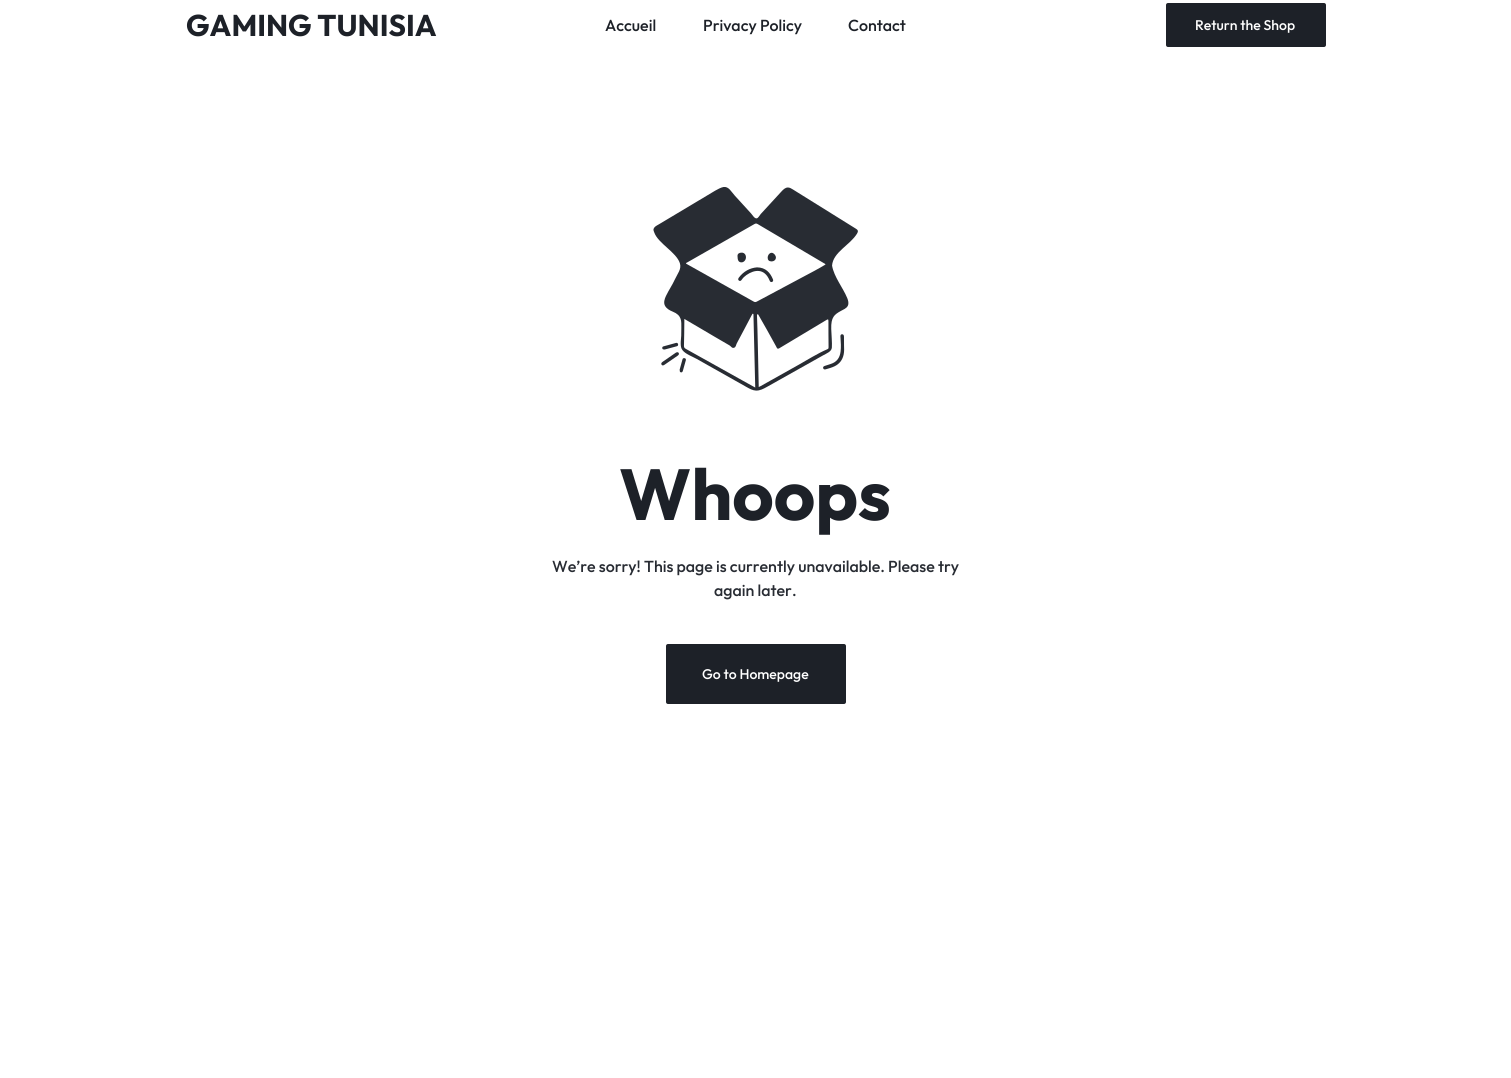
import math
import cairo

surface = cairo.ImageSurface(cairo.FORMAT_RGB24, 1511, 1078)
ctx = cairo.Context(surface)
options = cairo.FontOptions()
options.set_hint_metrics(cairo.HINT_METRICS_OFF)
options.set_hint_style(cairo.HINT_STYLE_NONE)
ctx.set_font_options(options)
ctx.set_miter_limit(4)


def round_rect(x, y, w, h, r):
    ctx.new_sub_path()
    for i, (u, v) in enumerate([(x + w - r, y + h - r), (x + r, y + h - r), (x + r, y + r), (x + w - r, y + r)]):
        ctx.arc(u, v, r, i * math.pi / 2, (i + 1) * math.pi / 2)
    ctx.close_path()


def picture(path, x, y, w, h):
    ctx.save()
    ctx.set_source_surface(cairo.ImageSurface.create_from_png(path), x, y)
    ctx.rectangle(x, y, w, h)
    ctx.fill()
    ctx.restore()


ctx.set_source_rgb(1, 1, 1)
ctx.paint()
ctx.select_font_face("Outfit", cairo.FONT_SLANT_NORMAL, cairo.FONT_WEIGHT_BOLD)
ctx.set_font_size(30)
ctx.set_source_rgb(0.114, 0.129, 0.157)
ctx.move_to(186, 36)
ctx.show_text("GAMING TUNISIA")
ctx.select_font_face("Outfit Medium")
ctx.set_font_size(16)
ctx.move_to(605, 31)
ctx.show_text("Accueil")
ctx.move_to(703, 31)
ctx.show_text("Privacy Policy")
ctx.move_to(848, 31)
ctx.show_text("Contact")
round_rect(1166, 3, 160, 44, 2)
ctx.fill()
ctx.set_font_size(14)
ctx.set_source_rgb(1, 1, 1)
ctx.move_to(1195, 30)
ctx.show_text("Return the Shop")
picture("img1.png", 653, 187, 205, 204)
ctx.select_font_face("Outfit", cairo.FONT_SLANT_NORMAL, cairo.FONT_WEIGHT_BOLD)
ctx.set_font_size(72)
ctx.set_source_rgb(0.114, 0.129, 0.157)
ctx.move_to(619, 520)
ctx.show_text("Whoops")
ctx.select_font_face("Outfit Medium")
ctx.set_font_size(16)
ctx.set_source_rgb(0.157, 0.173, 0.2)
ctx.move_to(552, 572)
ctx.show_text("We’re sorry! This page is currently unavailable. Please try")
ctx.move_to(714, 596)
ctx.show_text("again later.")
ctx.set_source_rgb(0.114, 0.129, 0.157)
round_rect(666, 644, 180, 60, 2)
ctx.fill()
ctx.set_font_size(14)
ctx.set_source_rgb(1, 1, 1)
ctx.move_to(702, 679)
ctx.show_text("Go to Homepage")
surface.write_to_png("page.png")
